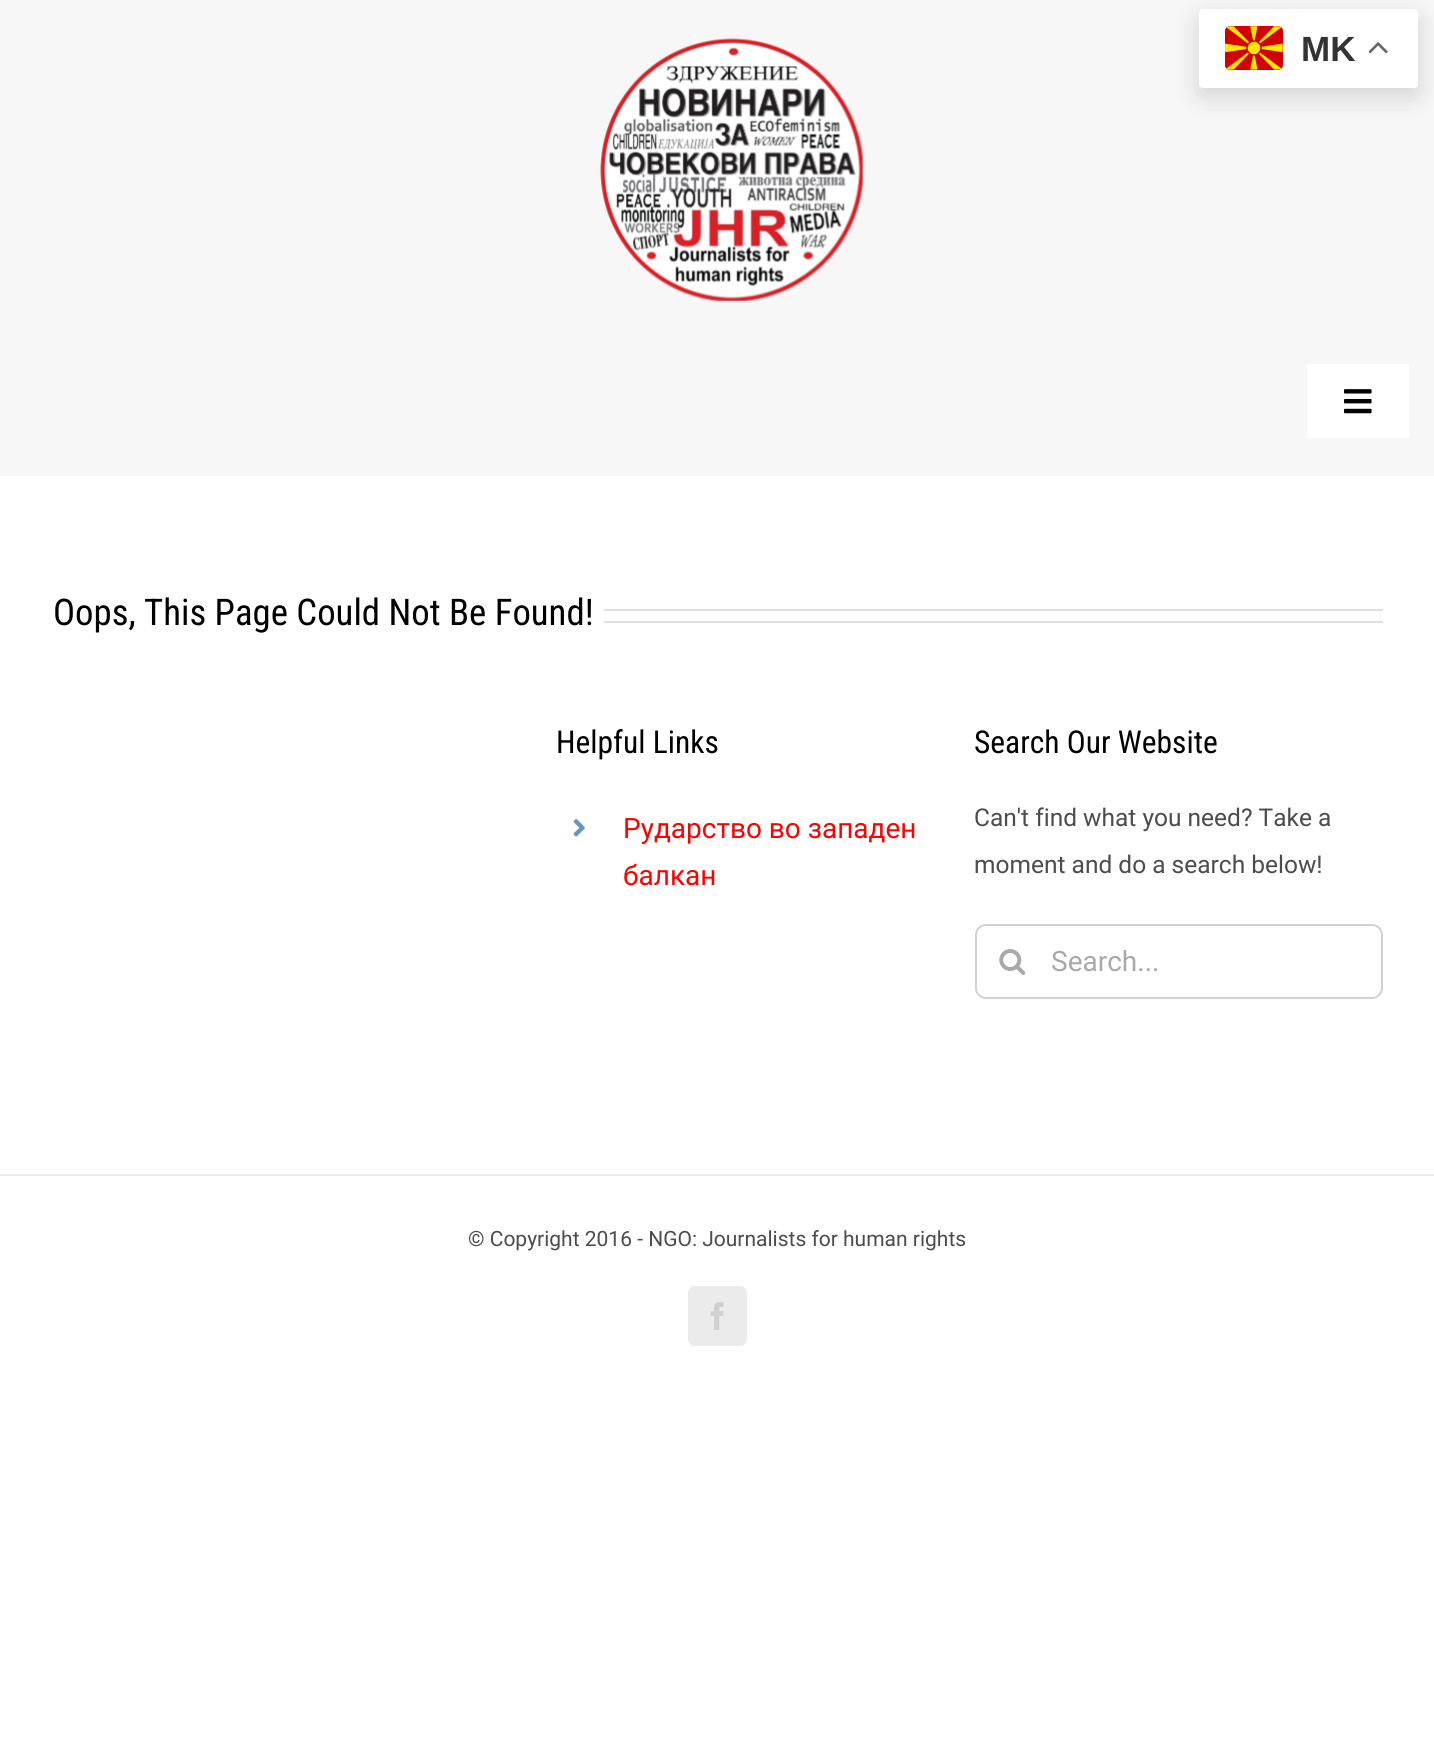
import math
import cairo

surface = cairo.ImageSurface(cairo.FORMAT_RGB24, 1434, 1760)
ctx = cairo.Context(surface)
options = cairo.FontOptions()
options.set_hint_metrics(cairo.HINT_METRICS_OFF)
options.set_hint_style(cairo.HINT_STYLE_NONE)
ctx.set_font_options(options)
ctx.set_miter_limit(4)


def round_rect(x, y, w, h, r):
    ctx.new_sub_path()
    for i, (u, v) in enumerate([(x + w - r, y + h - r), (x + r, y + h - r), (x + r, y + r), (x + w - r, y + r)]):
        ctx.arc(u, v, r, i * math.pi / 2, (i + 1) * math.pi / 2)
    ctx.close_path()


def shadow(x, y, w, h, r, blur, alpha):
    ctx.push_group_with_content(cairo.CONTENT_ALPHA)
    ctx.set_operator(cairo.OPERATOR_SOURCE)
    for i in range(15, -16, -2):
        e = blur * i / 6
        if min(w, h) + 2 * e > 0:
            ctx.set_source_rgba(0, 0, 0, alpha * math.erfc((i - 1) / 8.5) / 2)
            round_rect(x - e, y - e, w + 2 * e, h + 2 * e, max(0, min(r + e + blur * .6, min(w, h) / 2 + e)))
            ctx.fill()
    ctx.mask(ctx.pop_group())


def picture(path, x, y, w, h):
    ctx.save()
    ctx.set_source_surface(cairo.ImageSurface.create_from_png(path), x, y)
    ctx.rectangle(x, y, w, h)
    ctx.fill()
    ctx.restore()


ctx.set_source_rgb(1, 1, 1)
ctx.paint()
ctx.set_source_rgb(0.965, 0.965, 0.965)
ctx.rectangle(0, 0, 1434, 476)
ctx.fill()
ctx.set_source_rgb(0, 0, 0)
shadow(1199, 18, 219, 78, 4, 13, 0.15)
ctx.set_source_rgb(1, 1, 1)
round_rect(1199, 9, 219, 79, 4)
ctx.fill()
picture("img1.png", 1225, 26, 58, 44)
ctx.select_font_face("Liberation Sans", cairo.FONT_SLANT_NORMAL, cairo.FONT_WEIGHT_BOLD)
ctx.set_font_size(35)
ctx.set_source_rgb(0.2, 0.2, 0.2)
ctx.move_to(1301, 61)
ctx.show_text("MK")
picture("img2.png", 1369, 42, 19, 12)
picture("img3.png", 600, 38, 263, 263)
ctx.set_source_rgb(1, 1, 1)
ctx.rectangle(1307, 364, 102, 74)
ctx.fill()
picture("img4.png", 1344, 389, 28, 25)
ctx.select_font_face("Roboto Condensed")
ctx.set_font_size(36.75)
ctx.set_source_rgb(0, 0, 0)
ctx.move_to(53, 625)
ctx.show_text("Oops, This Page Could Not Be Found!")
ctx.set_source_rgb(0.878, 0.871, 0.871)
ctx.rectangle(604, 609, 779, 2)
ctx.fill()
ctx.rectangle(604, 621, 779, 2)
ctx.fill()
ctx.set_font_size(31.5)
ctx.set_source_rgb(0, 0, 0)
ctx.move_to(556, 753)
ctx.show_text("Helpful Links")
picture("img5.png", 573, 819, 12, 18)
ctx.select_font_face("Roboto")
ctx.set_font_size(28)
ctx.set_source_rgb(1, 0, 0)
ctx.move_to(623, 838)
ctx.show_text("Рударство во западен")
ctx.move_to(623, 885)
ctx.show_text("балкан")
ctx.select_font_face("Roboto Condensed")
ctx.set_font_size(31.5)
ctx.set_source_rgb(0, 0, 0)
ctx.move_to(974, 753)
ctx.show_text("Search Our Website")
ctx.select_font_face("Roboto")
ctx.set_font_size(24.5)
ctx.set_source_rgb(0.298, 0.298, 0.298)
ctx.move_to(974, 826)
ctx.show_text("Can't find what you need? Take a")
ctx.move_to(974, 873)
ctx.show_text("moment and do a search below!")
round_rect(976, 925, 406, 73, 10)
ctx.set_source_rgb(0.824, 0.824, 0.824)
ctx.stroke()
picture("img6.png", 999, 949, 27, 26)
ctx.set_font_size(28)
ctx.set_source_rgb(0.667, 0.663, 0.663)
ctx.move_to(1051, 971)
ctx.show_text("Search...")
ctx.set_source_rgb(0.918, 0.918, 0.918)
ctx.rectangle(0, 1174, 1434, 2)
ctx.fill()
ctx.set_font_size(21)
ctx.set_source_rgb(0.298, 0.298, 0.298)
ctx.move_to(468, 1246)
ctx.show_text("© Copyright 2016 - NGO: Journalists for human rights")
ctx.set_source_rgb(0.918, 0.918, 0.918)
round_rect(689, 1287, 57, 58, 6)
ctx.fill_preserve()
ctx.stroke()
picture("img7.png", 710, 1302, 14, 28)
surface.write_to_png("page.png")
